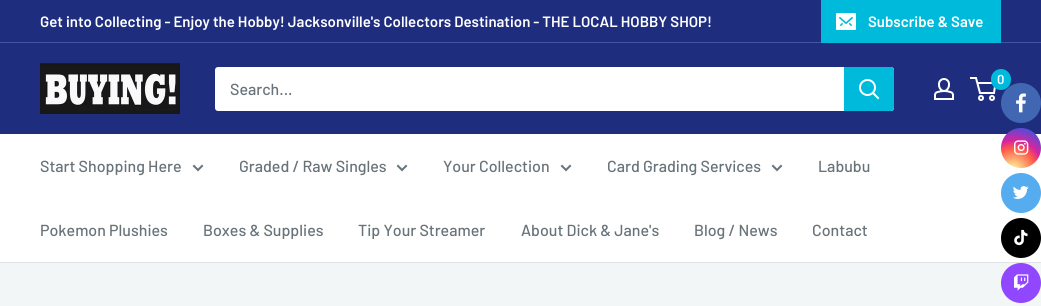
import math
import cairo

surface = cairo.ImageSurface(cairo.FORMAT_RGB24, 1041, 306)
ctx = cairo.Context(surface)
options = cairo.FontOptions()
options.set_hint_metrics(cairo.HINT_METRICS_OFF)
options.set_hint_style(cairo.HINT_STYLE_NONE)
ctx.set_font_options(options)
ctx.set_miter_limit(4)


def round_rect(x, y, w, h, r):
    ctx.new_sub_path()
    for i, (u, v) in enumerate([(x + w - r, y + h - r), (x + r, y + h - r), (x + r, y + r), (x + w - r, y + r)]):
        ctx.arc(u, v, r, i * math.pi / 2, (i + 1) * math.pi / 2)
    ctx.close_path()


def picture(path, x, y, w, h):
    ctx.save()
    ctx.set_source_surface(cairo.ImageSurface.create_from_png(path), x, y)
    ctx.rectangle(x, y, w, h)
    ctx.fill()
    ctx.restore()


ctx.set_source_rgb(0.953, 0.961, 0.965)
ctx.paint()
ctx.set_source_rgb(0.118, 0.176, 0.49)
ctx.rectangle(0, 0, 1041, 42)
ctx.fill()
ctx.set_source_rgb(0.275, 0.329, 0.624)
ctx.rectangle(0, 42, 1041, 1)
ctx.fill()
ctx.select_font_face("Barlow SemiBold")
ctx.set_font_size(15)
ctx.set_source_rgb(1, 1, 1)
ctx.move_to(40, 27)
ctx.show_text("Get into Collecting - Enjoy the Hobby! Jacksonville's Collectors Destination - THE LOCAL HOBBY SHOP!")
ctx.set_source_rgb(0, 0.729, 0.859)
ctx.rectangle(821, 0, 180, 43)
ctx.fill()
picture("img1.png", 836, 13, 20, 17)
ctx.set_source_rgb(1, 1, 1)
ctx.move_to(868, 27)
ctx.show_text("Subscribe & Save")
ctx.set_source_rgb(0.118, 0.176, 0.49)
ctx.rectangle(0, 43, 1041, 91)
ctx.fill()
picture("img2.png", 40, 63, 140, 51)
picture("img3.png", 934, 78, 20, 22)
ctx.arc(981, 98, 2, 0, 2 * math.pi)
ctx.set_source_rgb(1, 1, 1)
ctx.stroke()
ctx.arc(992, 98, 2, 0, 2 * math.pi)
ctx.stroke()
ctx.new_path()
ctx.move_to(977.5, 83)
ctx.line_to(995.5, 83)
ctx.line_to(994, 93)
ctx.line_to(980, 93)
ctx.line_to(976, 78)
ctx.line_to(970, 78)
ctx.stroke()
ctx.set_source_rgb(0, 0.729, 0.859)
round_rect(991, 69, 20, 21, 10)
ctx.fill()
ctx.set_font_size(13)
ctx.set_source_rgb(1, 1, 1)
ctx.move_to(997, 84)
ctx.show_text("0")
round_rect(215, 67, 679, 44, 3)
ctx.fill()
ctx.select_font_face("Barlow Medium")
ctx.set_font_size(16)
ctx.set_source_rgb(0.404, 0.447, 0.475)
ctx.move_to(230, 95)
ctx.show_text("Search...")
ctx.set_source_rgb(0, 0.729, 0.859)
ctx.new_path()
ctx.move_to(844, 67)
ctx.line_to(891, 67)
ctx.curve_to(892.5, 67, 894, 68.5, 894, 70)
ctx.line_to(894, 108)
ctx.curve_to(894, 109.5, 892.5, 111, 891, 111)
ctx.line_to(844, 111)
ctx.close_path()
ctx.fill()
ctx.new_path()
ctx.move_to(878, 98)
ctx.line_to(873, 93)
ctx.set_source_rgb(1, 1, 1)
ctx.set_line_cap(cairo.LINE_CAP_SQUARE)
ctx.stroke()
ctx.arc(867.5, 87.5, 7.5, 0, 2 * math.pi)
ctx.set_line_cap(cairo.LINE_CAP_BUTT)
ctx.stroke()
ctx.rectangle(0, 134, 1041, 128)
ctx.fill()
ctx.set_source_rgb(0.882, 0.89, 0.894)
ctx.rectangle(0, 262, 1041, 1)
ctx.fill()
ctx.set_source_rgb(0.404, 0.447, 0.475)
ctx.move_to(40, 172)
ctx.show_text("Start Shopping Here")
ctx.new_path()
ctx.move_to(202, 166)
ctx.line_to(198, 170)
ctx.line_to(194, 166)
ctx.set_line_cap(cairo.LINE_CAP_SQUARE)
ctx.stroke()
ctx.move_to(239, 172)
ctx.show_text("Graded / Raw Singles")
ctx.new_path()
ctx.move_to(406, 166)
ctx.line_to(402, 170)
ctx.line_to(398, 166)
ctx.stroke()
ctx.move_to(443, 172)
ctx.show_text("Your Collection")
ctx.new_path()
ctx.move_to(570, 166)
ctx.line_to(566, 170)
ctx.line_to(562, 166)
ctx.stroke()
ctx.move_to(607, 172)
ctx.show_text("Card Grading Services")
ctx.new_path()
ctx.move_to(781, 166)
ctx.line_to(777, 170)
ctx.line_to(773, 166)
ctx.stroke()
ctx.move_to(818, 172)
ctx.show_text("Labubu")
ctx.move_to(40, 236)
ctx.show_text("Pokemon Plushies")
ctx.move_to(203, 236)
ctx.show_text("Boxes & Supplies")
ctx.move_to(358, 236)
ctx.show_text("Tip Your Streamer")
ctx.move_to(521, 236)
ctx.show_text("About Dick & Jane's")
ctx.move_to(694, 236)
ctx.show_text("Blog / News")
ctx.move_to(812, 236)
ctx.show_text("Contact")
ctx.set_source_rgb(0.259, 0.404, 0.698)
ctx.new_path()
ctx.arc(1021, 103, 20, 0, 2 * math.pi)
ctx.fill()
picture("img4.png", 1016, 93, 10, 20)
gradient = cairo.RadialGradient(1013, 171, 0, 1013, 171, 51)
gradient.add_color_stop_rgba(0, 0.992, 0.957, 0.592, 1)
gradient.add_color_stop_rgba(0.05, 0.992, 0.957, 0.592, 1)
gradient.add_color_stop_rgba(0.45, 0.992, 0.349, 0.286, 1)
gradient.add_color_stop_rgba(0.6, 0.839, 0.141, 0.624, 1)
gradient.add_color_stop_rgba(0.95, 0.157, 0.353, 0.922, 1)
ctx.set_source(gradient)
ctx.arc(1021, 148, 20, 0, 2 * math.pi)
ctx.fill()
picture("img5.png", 1014, 140, 15, 15)
ctx.set_source_rgb(0.333, 0.675, 0.933)
ctx.arc(1021, 193, 20, 0, 2 * math.pi)
ctx.fill()
picture("img6.png", 1013, 186, 16, 13)
ctx.set_source_rgb(0, 0, 0)
ctx.arc(1021, 238, 20, 0, 2 * math.pi)
ctx.fill()
picture("img7.png", 1014, 229, 14, 17)
ctx.set_source_rgb(0.569, 0.275, 1)
ctx.arc(1021, 283, 20, 0, 2 * math.pi)
ctx.fill()
picture("img8.png", 1014, 274, 15, 17)
surface.write_to_png("page.png")
